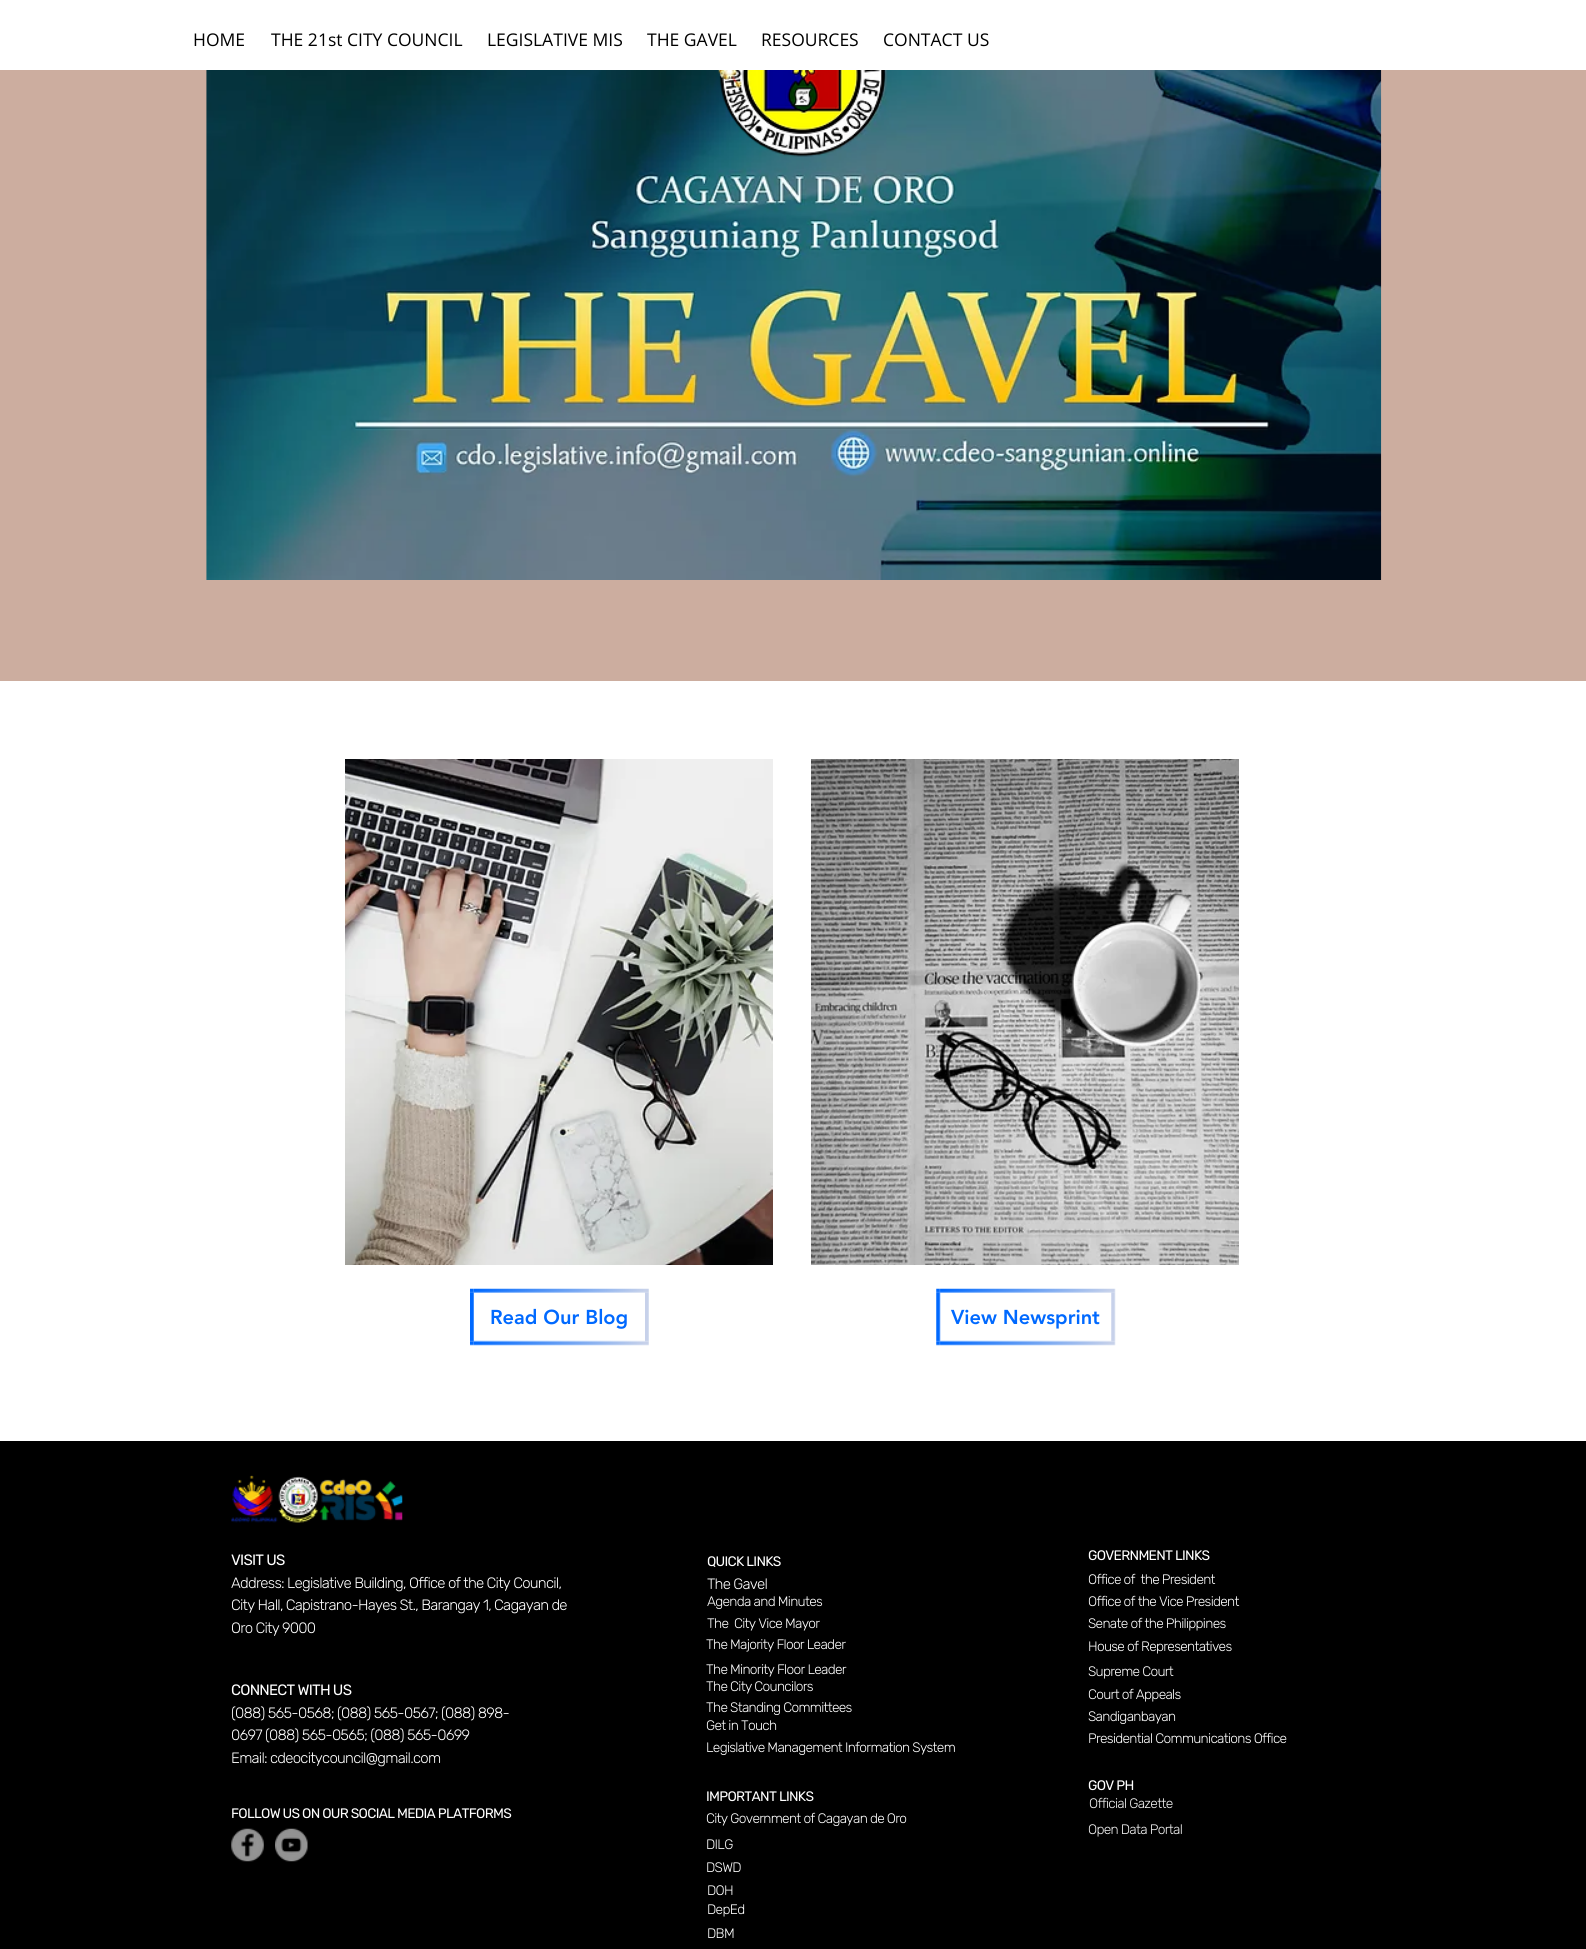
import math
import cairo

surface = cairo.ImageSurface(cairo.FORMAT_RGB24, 1586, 1949)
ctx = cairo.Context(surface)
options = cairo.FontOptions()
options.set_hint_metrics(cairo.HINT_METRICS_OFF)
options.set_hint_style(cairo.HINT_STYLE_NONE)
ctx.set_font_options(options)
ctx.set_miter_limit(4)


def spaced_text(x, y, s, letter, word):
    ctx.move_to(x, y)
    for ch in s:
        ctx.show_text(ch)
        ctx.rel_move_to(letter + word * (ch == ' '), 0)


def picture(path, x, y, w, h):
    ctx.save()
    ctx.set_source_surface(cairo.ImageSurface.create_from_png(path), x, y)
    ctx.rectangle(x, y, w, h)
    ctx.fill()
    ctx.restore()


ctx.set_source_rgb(1, 1, 1)
ctx.paint()
ctx.select_font_face("Open Sans")
ctx.set_font_size(17.5)
ctx.set_source_rgb(0, 0, 0)
ctx.move_to(193, 46)
ctx.show_text("HOME")
ctx.move_to(271, 46)
ctx.show_text("THE 21st CITY COUNCIL")
ctx.move_to(487, 46)
ctx.show_text("LEGISLATIVE MIS")
ctx.move_to(647, 46)
ctx.show_text("THE GAVEL")
ctx.move_to(761, 46)
ctx.show_text("RESOURCES")
ctx.move_to(883, 46)
ctx.show_text("CONTACT US")
ctx.set_source_rgb(0.8, 0.678, 0.624)
ctx.rectangle(0, 70, 1586, 611)
ctx.fill()
picture("img1.png", 206, 70, 1176, 510)
picture("img2.png", 718, 70, 168, 87)
picture("img3.png", 345, 759, 428, 506)
picture("img4.png", 470, 1288, 179, 58)
ctx.select_font_face("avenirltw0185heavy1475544 Black")
ctx.set_font_size(20)
ctx.set_source_rgb(0, 0.412, 1)
ctx.move_to(490, 1324)
ctx.show_text("Read Our Blog")
picture("img5.png", 811, 759, 428, 506)
picture("img6.png", 936, 1288, 180, 58)
ctx.move_to(951, 1324)
ctx.show_text("View Newsprint")
ctx.set_source_rgb(0, 0, 0)
ctx.rectangle(0, 1441, 1586, 508)
ctx.fill()
picture("img7.png", 231, 1475, 172, 48)
ctx.select_font_face("Rubik")
ctx.set_font_size(15)
ctx.set_source_rgb(1, 1, 1)
spaced_text(231, 1565, "VISIT US", -0.75, 0)
ctx.select_font_face("Rubik Light")
spaced_text(231, 1588, "Address: Legislative Building, Office of the City Council,", -0.75, 0)
spaced_text(231, 1610, "City Hall, Capistrano-Hayes St., Barangay 1, Cagayan de", -0.75, 0)
spaced_text(231, 1633, "Oro City 9000", -0.75, 0)
ctx.select_font_face("Rubik")
ctx.set_font_size(13.75)
spaced_text(707, 1566, "QUICK LINKS", -0.7, 0)
spaced_text(1088, 1560, "GOVERNMENT LINKS", -0.7, 0)
ctx.select_font_face("Rubik Light")
spaced_text(1088, 1584, "Office of  the President", -0.7, 0)
spaced_text(1088, 1606, "Office of the Vice President", -0.7, 0)
spaced_text(1088, 1628, "Senate of the Philippines", -0.7, 0)
spaced_text(1088, 1651, "House of Representatives", -0.7, 0)
spaced_text(1088, 1676, "Supreme Court", -0.7, 0)
spaced_text(1088, 1699, "Court of Appeals", -0.7, 0)
spaced_text(1088, 1721, "Sandiganbayan", -0.7, 0)
spaced_text(1088, 1743, "Presidential Communications Office", -0.7, 0)
ctx.set_font_size(15)
spaced_text(707, 1589, "The Gavel", -0.75, 0)
ctx.set_font_size(13.75)
spaced_text(707, 1606, "Agenda and Minutes", -0.7, 0)
spaced_text(707, 1628, "The  City Vice Mayor", -0.7, 0)
spaced_text(706, 1649, "The Majority Floor Leader", -0.7, 0)
spaced_text(706, 1674, "The Minority Floor Leader", -0.7, 0)
ctx.select_font_face("Rubik")
ctx.set_font_size(15)
spaced_text(231, 1695, "CONNECT WITH US", -0.75, 0)
ctx.select_font_face("Rubik Light")
spaced_text(231, 1718, "(088) 565-0568; (088) 565-0567; (088) 898-", -0.75, 0)
spaced_text(231, 1740, "0697 (088) 565-0565; (088) 565-0699", -0.75, 0)
spaced_text(231, 1763, "Email: cdeocitycouncil@gmail.com", -0.75, 0)
ctx.set_font_size(13.75)
spaced_text(706, 1691, "The City Councilors", -0.7, 0)
spaced_text(706, 1712, "The Standing Committees", -0.7, 0)
spaced_text(706, 1730, "Get in Touch", -0.7, 0)
spaced_text(706, 1752, "Legislative Management Information System", -0.7, 0)
ctx.select_font_face("Rubik")
spaced_text(1088, 1790, "GOV PH", -0.7, 0)
spaced_text(706, 1801, "IMPORTANT LINKS", -0.7, 0)
ctx.select_font_face("Rubik Light")
spaced_text(706, 1823, "City Government of Cagayan de Oro", -0.7, 0)
ctx.set_source_rgb(0.945, 0.945, 0.945)
spaced_text(1089, 1808, "Official Gazette", -0.7, 0)
ctx.select_font_face("Rubik")
ctx.set_source_rgb(1, 1, 1)
spaced_text(231, 1818, "FOLLOW US ON OUR SOCIAL MEDIA PLATFORMS", -0.7, 0)
picture("img8.png", 231, 1828, 33, 34)
picture("img9.png", 275, 1828, 33, 34)
ctx.select_font_face("Rubik Light")
ctx.set_source_rgb(0.945, 0.945, 0.945)
spaced_text(1088, 1834, "Open Data Portal", -0.7, 0)
ctx.set_source_rgb(1, 1, 1)
spaced_text(706, 1849, "DILG", -0.7, 0)
spaced_text(706, 1872, "DSWD", -0.7, 0)
spaced_text(707, 1895, "DOH", -0.7, 0)
spaced_text(707, 1914, "DepEd", -0.7, 0)
spaced_text(707, 1938, "DBM", -0.7, 0)
surface.write_to_png("page.png")
